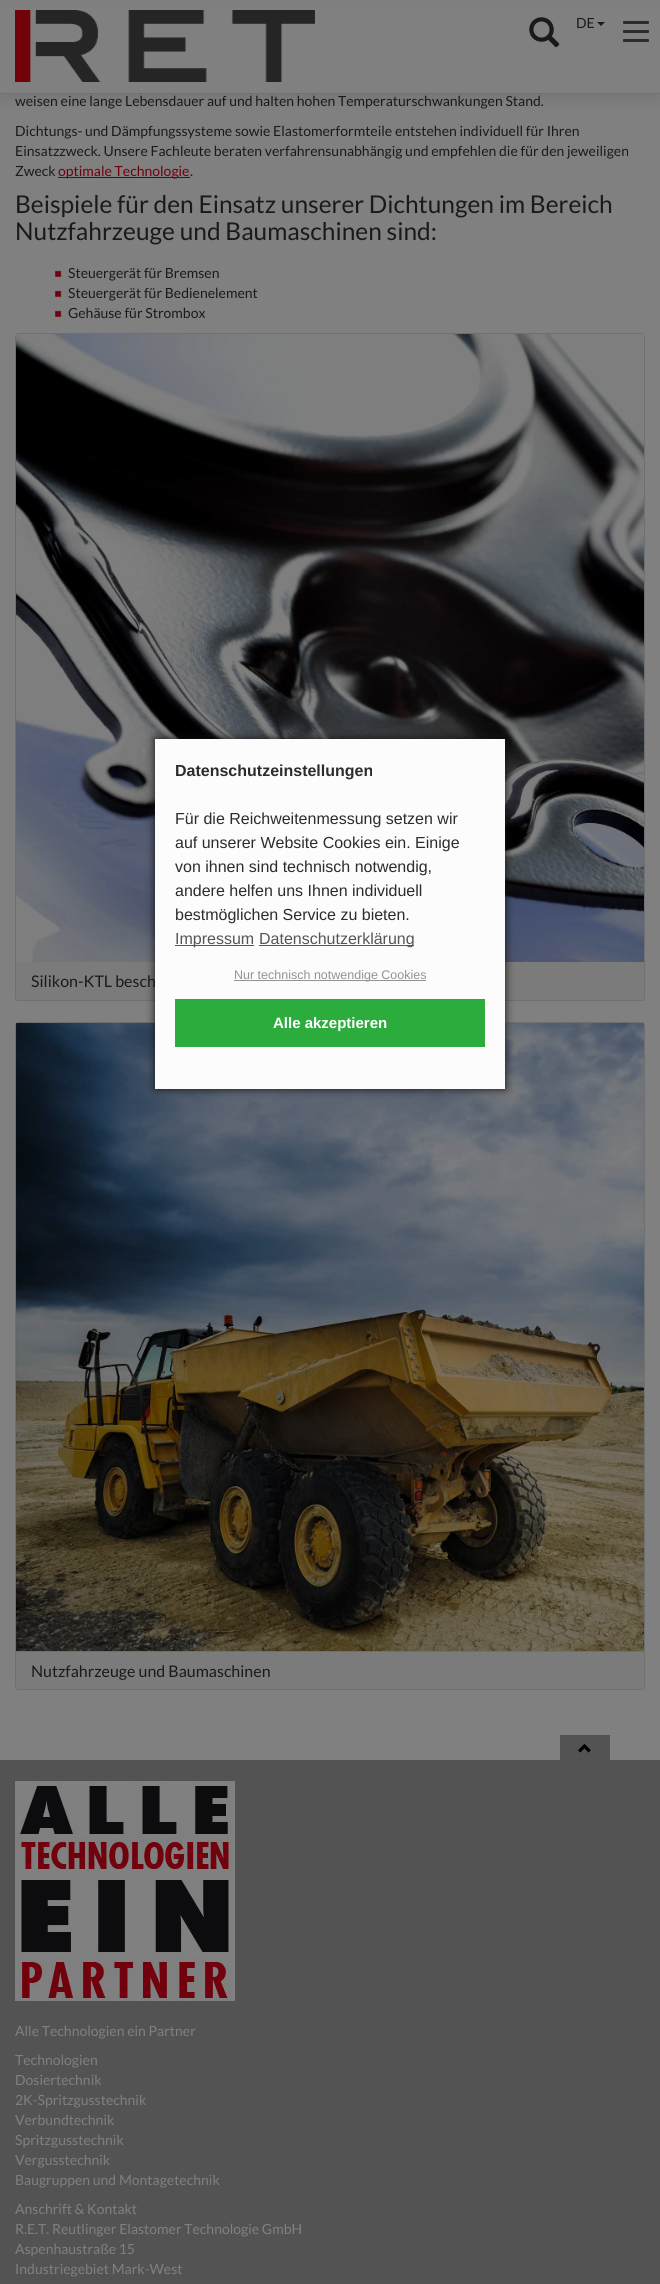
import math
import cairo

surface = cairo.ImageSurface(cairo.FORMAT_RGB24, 660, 2284)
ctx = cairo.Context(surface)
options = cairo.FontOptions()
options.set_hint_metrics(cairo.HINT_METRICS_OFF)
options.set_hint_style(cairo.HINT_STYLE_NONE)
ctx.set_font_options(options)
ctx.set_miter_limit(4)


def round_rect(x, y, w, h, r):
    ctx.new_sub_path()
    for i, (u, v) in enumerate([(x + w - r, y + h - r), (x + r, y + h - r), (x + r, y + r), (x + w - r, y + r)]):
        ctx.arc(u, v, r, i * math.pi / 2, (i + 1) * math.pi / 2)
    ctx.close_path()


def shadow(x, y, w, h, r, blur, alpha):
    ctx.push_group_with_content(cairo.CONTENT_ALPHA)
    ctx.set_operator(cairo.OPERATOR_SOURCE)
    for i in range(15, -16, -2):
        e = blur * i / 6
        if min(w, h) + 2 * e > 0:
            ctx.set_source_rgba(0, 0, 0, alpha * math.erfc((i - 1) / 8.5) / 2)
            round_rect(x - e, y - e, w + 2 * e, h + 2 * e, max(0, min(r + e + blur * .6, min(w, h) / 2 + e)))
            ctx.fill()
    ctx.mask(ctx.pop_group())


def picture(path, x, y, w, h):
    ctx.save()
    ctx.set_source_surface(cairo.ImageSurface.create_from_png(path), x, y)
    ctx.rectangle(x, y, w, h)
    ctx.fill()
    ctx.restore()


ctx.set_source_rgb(0.502, 0.502, 0.502)
ctx.paint()
ctx.set_source_rgb(0.471, 0.471, 0.471)
shadow(0, 8, 660, 94, 0, 4, 1)
ctx.set_source_rgb(0.502, 0.502, 0.502)
ctx.rectangle(0, 6, 660, 87)
ctx.fill()
ctx.set_source_rgb(0.447, 0.447, 0.447)
ctx.rectangle(0, 93, 660, 1)
ctx.fill()
picture("img1.png", 15, 10, 300, 72)
picture("img2.png", 529, 17, 31, 31)
ctx.select_font_face("Lato")
ctx.set_font_size(14)
ctx.set_source_rgb(0.102, 0.102, 0.102)
ctx.move_to(576, 28)
ctx.show_text("DE")
ctx.new_path()
ctx.move_to(597, 22)
ctx.line_to(605, 22)
ctx.line_to(601, 26)
ctx.close_path()
ctx.fill()
ctx.set_source_rgb(0.169, 0.169, 0.169)
round_rect(623, 21, 26, 3, 1)
ctx.fill()
round_rect(623, 30, 26, 3, 1)
ctx.fill()
round_rect(623, 39, 26, 3, 1)
ctx.fill()
ctx.set_source_rgb(0.102, 0.102, 0.102)
ctx.move_to(15, 106)
ctx.show_text("weisen eine lange Lebensdauer auf und halten hohen Temperaturschwankungen Stand.")
ctx.move_to(15, 136)
ctx.show_text("Dichtungs- und Dämpfungssysteme sowie Elastomerformteile entstehen individuell für Ihren")
ctx.move_to(15, 156)
ctx.show_text("Einsatzzweck. Unsere Fachleute beraten verfahrensunabhängig und empfehlen die für den jeweiligen")
ctx.move_to(15, 176)
ctx.show_text("Zweck")
ctx.set_source_rgb(0.443, 0, 0.051)
ctx.rectangle(58, 177, 132, 1)
ctx.fill()
ctx.move_to(58, 176)
ctx.show_text("optimale Technologie")
ctx.set_source_rgb(0.102, 0.102, 0.102)
ctx.move_to(190, 176)
ctx.show_text(".")
ctx.set_font_size(24.5)
ctx.move_to(15, 213)
ctx.show_text("Beispiele für den Einsatz unserer Dichtungen im Bereich")
ctx.move_to(15, 240)
ctx.show_text("Nutzfahrzeuge und Baumaschinen sind:")
picture("img3.png", 55, 270, 7, 8)
ctx.set_font_size(14)
ctx.move_to(68, 278)
ctx.show_text("Steuergerät für Bremsen")
picture("img3.png", 55, 290, 7, 8)
ctx.move_to(68, 298)
ctx.show_text("Steuergerät für Bedienelement")
picture("img3.png", 55, 310, 7, 8)
ctx.move_to(68, 318)
ctx.show_text("Gehäuse für Strombox")
ctx.set_source_rgb(0.482, 0.482, 0.482)
ctx.new_path()
ctx.move_to(19, 333.5)
ctx.line_to(641, 333.5)
ctx.curve_to(643, 333.5, 644.5, 335, 644.5, 337)
ctx.line_to(644.5, 998)
ctx.curve_to(644.5, 999.5, 643.5, 1000.5, 642, 1000.5)
ctx.line_to(18, 1000.5)
ctx.curve_to(16.5, 1000.5, 15.5, 999.5, 15.5, 998)
ctx.line_to(15.5, 337)
ctx.curve_to(15.5, 335, 17, 333.5, 19, 333.5)
ctx.close_path()
ctx.fill_preserve()
ctx.set_source_rgb(0.435, 0.435, 0.435)
ctx.set_line_width(1)
ctx.stroke()
picture("img4.png", 16, 334, 628, 628)
ctx.set_font_size(16)
ctx.set_source_rgb(0.102, 0.102, 0.102)
ctx.move_to(31, 987)
ctx.show_text("Silikon-KTL besch")
round_rect(15.5, 1022.5, 629, 667, 3.5)
ctx.set_source_rgb(0.435, 0.435, 0.435)
ctx.stroke()
picture("img5.png", 16, 1023, 628, 628)
ctx.set_source_rgb(0.482, 0.482, 0.482)
ctx.new_path()
ctx.move_to(16, 1651)
ctx.line_to(644, 1651)
ctx.line_to(644, 1686)
ctx.curve_to(644, 1687.5, 642.5, 1689, 641, 1689)
ctx.line_to(19, 1689)
ctx.curve_to(17.5, 1689, 16, 1687.5, 16, 1686)
ctx.close_path()
ctx.fill()
ctx.set_source_rgb(0.435, 0.435, 0.435)
ctx.rectangle(16, 1651, 628, 1)
ctx.fill()
ctx.set_source_rgb(0.102, 0.102, 0.102)
ctx.move_to(31, 1677)
ctx.show_text("Nutzfahrzeuge und Baumaschinen")
ctx.set_source_rgb(0.067, 0.067, 0.067)
shadow(155, 739, 350, 350, 0, 4.5, 1)
ctx.set_source_rgb(0.988, 0.988, 0.988)
ctx.rectangle(155, 739, 350, 350)
ctx.fill()
ctx.select_font_face("Liberation Sans", cairo.FONT_SLANT_NORMAL, cairo.FONT_WEIGHT_BOLD)
ctx.set_source_rgb(0.173, 0.173, 0.173)
ctx.move_to(175, 776)
ctx.show_text("Datenschutzeinstellungen")
ctx.select_font_face("Liberation Sans")
ctx.move_to(175, 824)
ctx.show_text("Für die Reichweitenmessung setzen wir")
ctx.move_to(175, 848)
ctx.show_text("auf unserer Website Cookies ein. Einige")
ctx.move_to(175, 872)
ctx.show_text("von ihnen sind technisch notwendig,")
ctx.move_to(175, 896)
ctx.show_text("andere helfen uns Ihnen individuell")
ctx.move_to(175, 920)
ctx.show_text("bestmöglichen Service zu bieten.")
ctx.set_source_rgb(0.337, 0.337, 0.337)
ctx.rectangle(175, 945, 79, 1)
ctx.fill()
ctx.move_to(175, 944)
ctx.show_text("Impressum")
ctx.rectangle(259, 945, 155, 1)
ctx.fill()
ctx.move_to(259, 944)
ctx.show_text("Datenschutzerklärung")
ctx.set_source_rgb(0.576, 0.576, 0.576)
ctx.rectangle(234, 980, 192, 1)
ctx.fill()
ctx.set_font_size(12.5)
ctx.move_to(234, 979)
ctx.show_text("Nur technisch notwendige Cookies")
ctx.set_source_rgb(0.173, 0.675, 0.235)
ctx.rectangle(175, 999, 310, 48)
ctx.fill()
ctx.select_font_face("Liberation Sans", cairo.FONT_SLANT_NORMAL, cairo.FONT_WEIGHT_BOLD)
ctx.set_font_size(15)
ctx.set_source_rgb(1, 1, 1)
ctx.move_to(273, 1028)
ctx.show_text("Alle akzeptieren")
ctx.set_source_rgb(0.325, 0.325, 0.325)
ctx.rectangle(560, 1735, 50, 25)
ctx.fill()
picture("img6.png", 578, 1743, 13, 10)
ctx.rectangle(0, 1760, 660, 524)
ctx.fill()
picture("img7.png", 15, 1781, 220, 220)
ctx.select_font_face("Lato")
ctx.set_font_size(14)
ctx.set_source_rgb(0.502, 0.502, 0.502)
ctx.move_to(15, 2036)
ctx.show_text("Alle Technologien ein Partner")
ctx.move_to(15, 2065)
ctx.show_text("Technologien")
ctx.move_to(15, 2085)
ctx.show_text("Dosiertechnik")
ctx.move_to(15, 2105)
ctx.show_text("2K-Spritzgusstechnik")
ctx.move_to(15, 2125)
ctx.show_text("Verbundtechnik")
ctx.move_to(15, 2145)
ctx.show_text("Spritzgusstechnik")
ctx.move_to(15, 2165)
ctx.show_text("Vergusstechnik")
ctx.move_to(15, 2185)
ctx.show_text("Baugruppen und Montagetechnik")
ctx.move_to(15, 2214)
ctx.show_text("Anschrift & Kontakt")
ctx.move_to(15, 2234)
ctx.show_text("R.E.T. Reutlinger Elastomer Technologie GmbH")
ctx.move_to(15, 2254)
ctx.show_text("Aspenhaustraße 15")
ctx.move_to(15, 2274)
ctx.show_text("Industriegebiet Mark-West")
surface.write_to_png("page.png")
